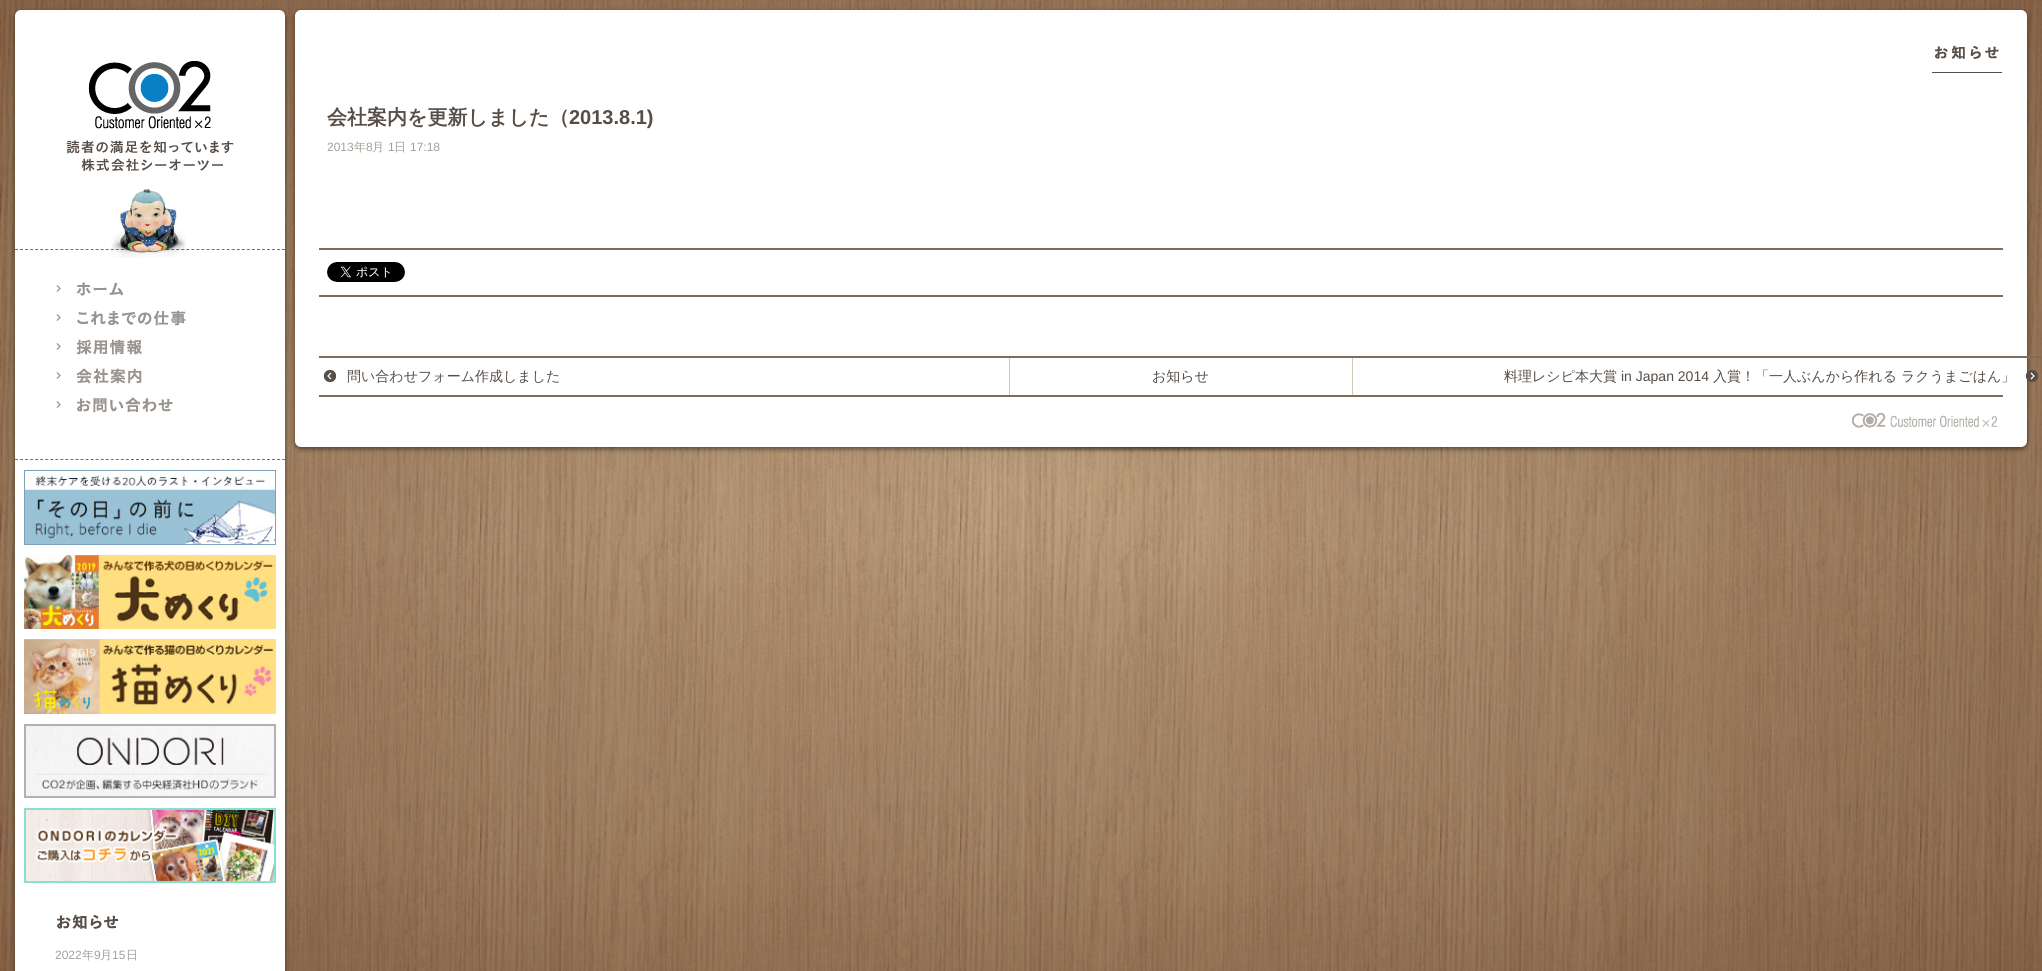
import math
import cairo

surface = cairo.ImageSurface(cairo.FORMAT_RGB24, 2042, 971)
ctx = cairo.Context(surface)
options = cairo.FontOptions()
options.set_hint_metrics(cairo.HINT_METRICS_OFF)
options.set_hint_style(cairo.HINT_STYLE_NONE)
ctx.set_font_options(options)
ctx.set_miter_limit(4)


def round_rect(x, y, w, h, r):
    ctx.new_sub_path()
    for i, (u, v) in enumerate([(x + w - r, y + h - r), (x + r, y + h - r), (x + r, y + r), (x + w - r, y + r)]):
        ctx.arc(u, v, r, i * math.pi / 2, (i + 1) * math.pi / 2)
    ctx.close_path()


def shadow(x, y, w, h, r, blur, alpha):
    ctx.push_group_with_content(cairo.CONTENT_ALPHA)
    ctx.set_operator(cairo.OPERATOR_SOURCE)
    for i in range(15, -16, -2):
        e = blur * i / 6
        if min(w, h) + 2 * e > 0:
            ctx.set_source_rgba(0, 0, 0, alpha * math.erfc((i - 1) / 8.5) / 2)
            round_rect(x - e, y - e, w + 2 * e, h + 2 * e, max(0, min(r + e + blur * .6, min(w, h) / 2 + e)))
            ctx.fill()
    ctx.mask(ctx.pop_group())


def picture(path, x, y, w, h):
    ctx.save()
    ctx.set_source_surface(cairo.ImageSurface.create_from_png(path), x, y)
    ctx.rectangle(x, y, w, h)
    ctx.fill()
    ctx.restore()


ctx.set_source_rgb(1, 1, 1)
ctx.paint()
picture("img1.png", 0, 0, 2042, 971)
ctx.set_source_rgb(0, 0, 0)
shadow(295, 12, 1732, 437, 6, 2.5, 0.5)
ctx.set_source_rgb(1, 1, 1)
round_rect(295, 10, 1732, 437, 6)
ctx.fill()
ctx.set_source_rgb(0.498, 0.424, 0.341)
ctx.rectangle(319, 395, 1684, 2)
ctx.fill()
picture("img2.png", 1932, 45, 70, 28)
ctx.select_font_face("WenQuanYi Zen Hei", cairo.FONT_SLANT_NORMAL, cairo.FONT_WEIGHT_BOLD)
ctx.set_font_size(20)
ctx.set_source_rgb(0.337, 0.302, 0.278)
ctx.move_to(327, 124)
ctx.show_text("会社案内を更新しました（")
ctx.select_font_face("Liberation Sans", cairo.FONT_SLANT_NORMAL, cairo.FONT_WEIGHT_BOLD)
ctx.move_to(569, 124)
ctx.show_text("2013.8.1)")
ctx.select_font_face("Liberation Sans")
ctx.set_font_size(12)
ctx.set_source_rgb(0.647, 0.627, 0.596)
ctx.move_to(327, 151)
ctx.show_text("2013")
ctx.select_font_face("WenQuanYi Zen Hei Medium")
ctx.move_to(354, 151)
ctx.show_text("年")
ctx.select_font_face("Liberation Sans")
ctx.move_to(366, 151)
ctx.show_text("8")
ctx.select_font_face("WenQuanYi Zen Hei Medium")
ctx.move_to(372, 151)
ctx.show_text("月")
ctx.select_font_face("Liberation Sans")
ctx.move_to(388, 151)
ctx.show_text("1")
ctx.select_font_face("WenQuanYi Zen Hei Medium")
ctx.move_to(394, 151)
ctx.show_text("日")
ctx.select_font_face("Liberation Sans")
ctx.move_to(410, 151)
ctx.show_text("17:18")
ctx.set_source_rgb(0.498, 0.424, 0.341)
ctx.rectangle(319, 248, 1684, 2)
ctx.fill()
picture("img3.png", 327, 262, 78, 20)
ctx.rectangle(319, 295, 1684, 2)
ctx.fill()
ctx.rectangle(319, 356, 1723, 2)
ctx.fill()
picture("img4.png", 323, 370, 13, 12)
ctx.select_font_face("WenQuanYi Zen Hei Medium")
ctx.set_font_size(14)
ctx.set_source_rgb(0.337, 0.302, 0.278)
ctx.move_to(347, 381)
ctx.show_text("問い合わせフォーム作成しました")
ctx.set_source_rgb(0.82, 0.788, 0.722)
ctx.rectangle(1352, 358, 1, 37)
ctx.fill()
ctx.rectangle(1009, 358, 1, 37)
ctx.fill()
ctx.set_source_rgb(0.337, 0.302, 0.278)
ctx.move_to(1152, 381)
ctx.show_text("お知らせ")
ctx.move_to(1504, 381)
ctx.show_text("料理レシピ本大賞")
ctx.select_font_face("Liberation Sans")
ctx.move_to(1621, 381)
ctx.show_text("in Japan 2014")
ctx.select_font_face("WenQuanYi Zen Hei Medium")
ctx.move_to(1713, 381)
ctx.show_text("入賞！「一人ぶんから作れる")
ctx.move_to(1901, 381)
ctx.show_text("ラクうまごはん」")
picture("img5.png", 2026, 370, 12, 12)
picture("img6.png", 1852, 413, 145, 15)
picture("img7.png", 935, 447, 440, 5)
ctx.set_source_rgb(0, 0, 0)
shadow(15, 12, 270, 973, 6, 2.5, 0.5)
ctx.set_source_rgb(1, 1, 1)
round_rect(15, 10, 270, 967, 6)
ctx.fill()
ctx.new_path()
ctx.move_to(15, 249.5)
ctx.line_to(285, 249.5)
ctx.set_source_rgb(0.498, 0.424, 0.341)
ctx.set_line_width(1)
ctx.set_dash([3, 2.04])
ctx.stroke()
picture("img8.png", 88, 60, 123, 69)
picture("img9.png", 66, 140, 168, 31)
picture("img10.png", 111, 189, 75, 69)
ctx.new_path()
ctx.move_to(15, 459.5)
ctx.line_to(285, 459.5)
ctx.stroke()
picture("img11.png", 76, 282, 47, 14)
picture("img12.png", 56, 285, 5, 7)
picture("img13.png", 77, 310, 109, 16)
picture("img12.png", 56, 314, 5, 7)
picture("img14.png", 76, 339, 66, 16)
picture("img12.png", 56, 343, 5, 7)
picture("img15.png", 76, 368, 66, 16)
picture("img12.png", 56, 372, 5, 7)
picture("img16.png", 77, 397, 96, 16)
picture("img12.png", 56, 401, 5, 7)
picture("img17.png", 24, 470, 252, 75)
picture("img18.png", 24, 555, 252, 74)
picture("img19.png", 24, 639, 252, 75)
picture("img20.png", 24, 724, 252, 74)
picture("img21.png", 24, 808, 252, 75)
picture("img22.png", 57, 914, 62, 15)
ctx.select_font_face("Liberation Sans")
ctx.set_font_size(12)
ctx.set_source_rgb(0.647, 0.627, 0.596)
ctx.move_to(55, 959)
ctx.show_text("2022")
ctx.select_font_face("WenQuanYi Zen Hei Medium")
ctx.move_to(82, 959)
ctx.show_text("年")
ctx.select_font_face("Liberation Sans")
ctx.move_to(94, 959)
ctx.show_text("9")
ctx.select_font_face("WenQuanYi Zen Hei Medium")
ctx.move_to(100, 959)
ctx.show_text("月")
ctx.select_font_face("Liberation Sans")
ctx.move_to(112, 959)
ctx.show_text("15")
ctx.select_font_face("WenQuanYi Zen Hei Medium")
ctx.move_to(126, 959)
ctx.show_text("日")
surface.write_to_png("page.png")
